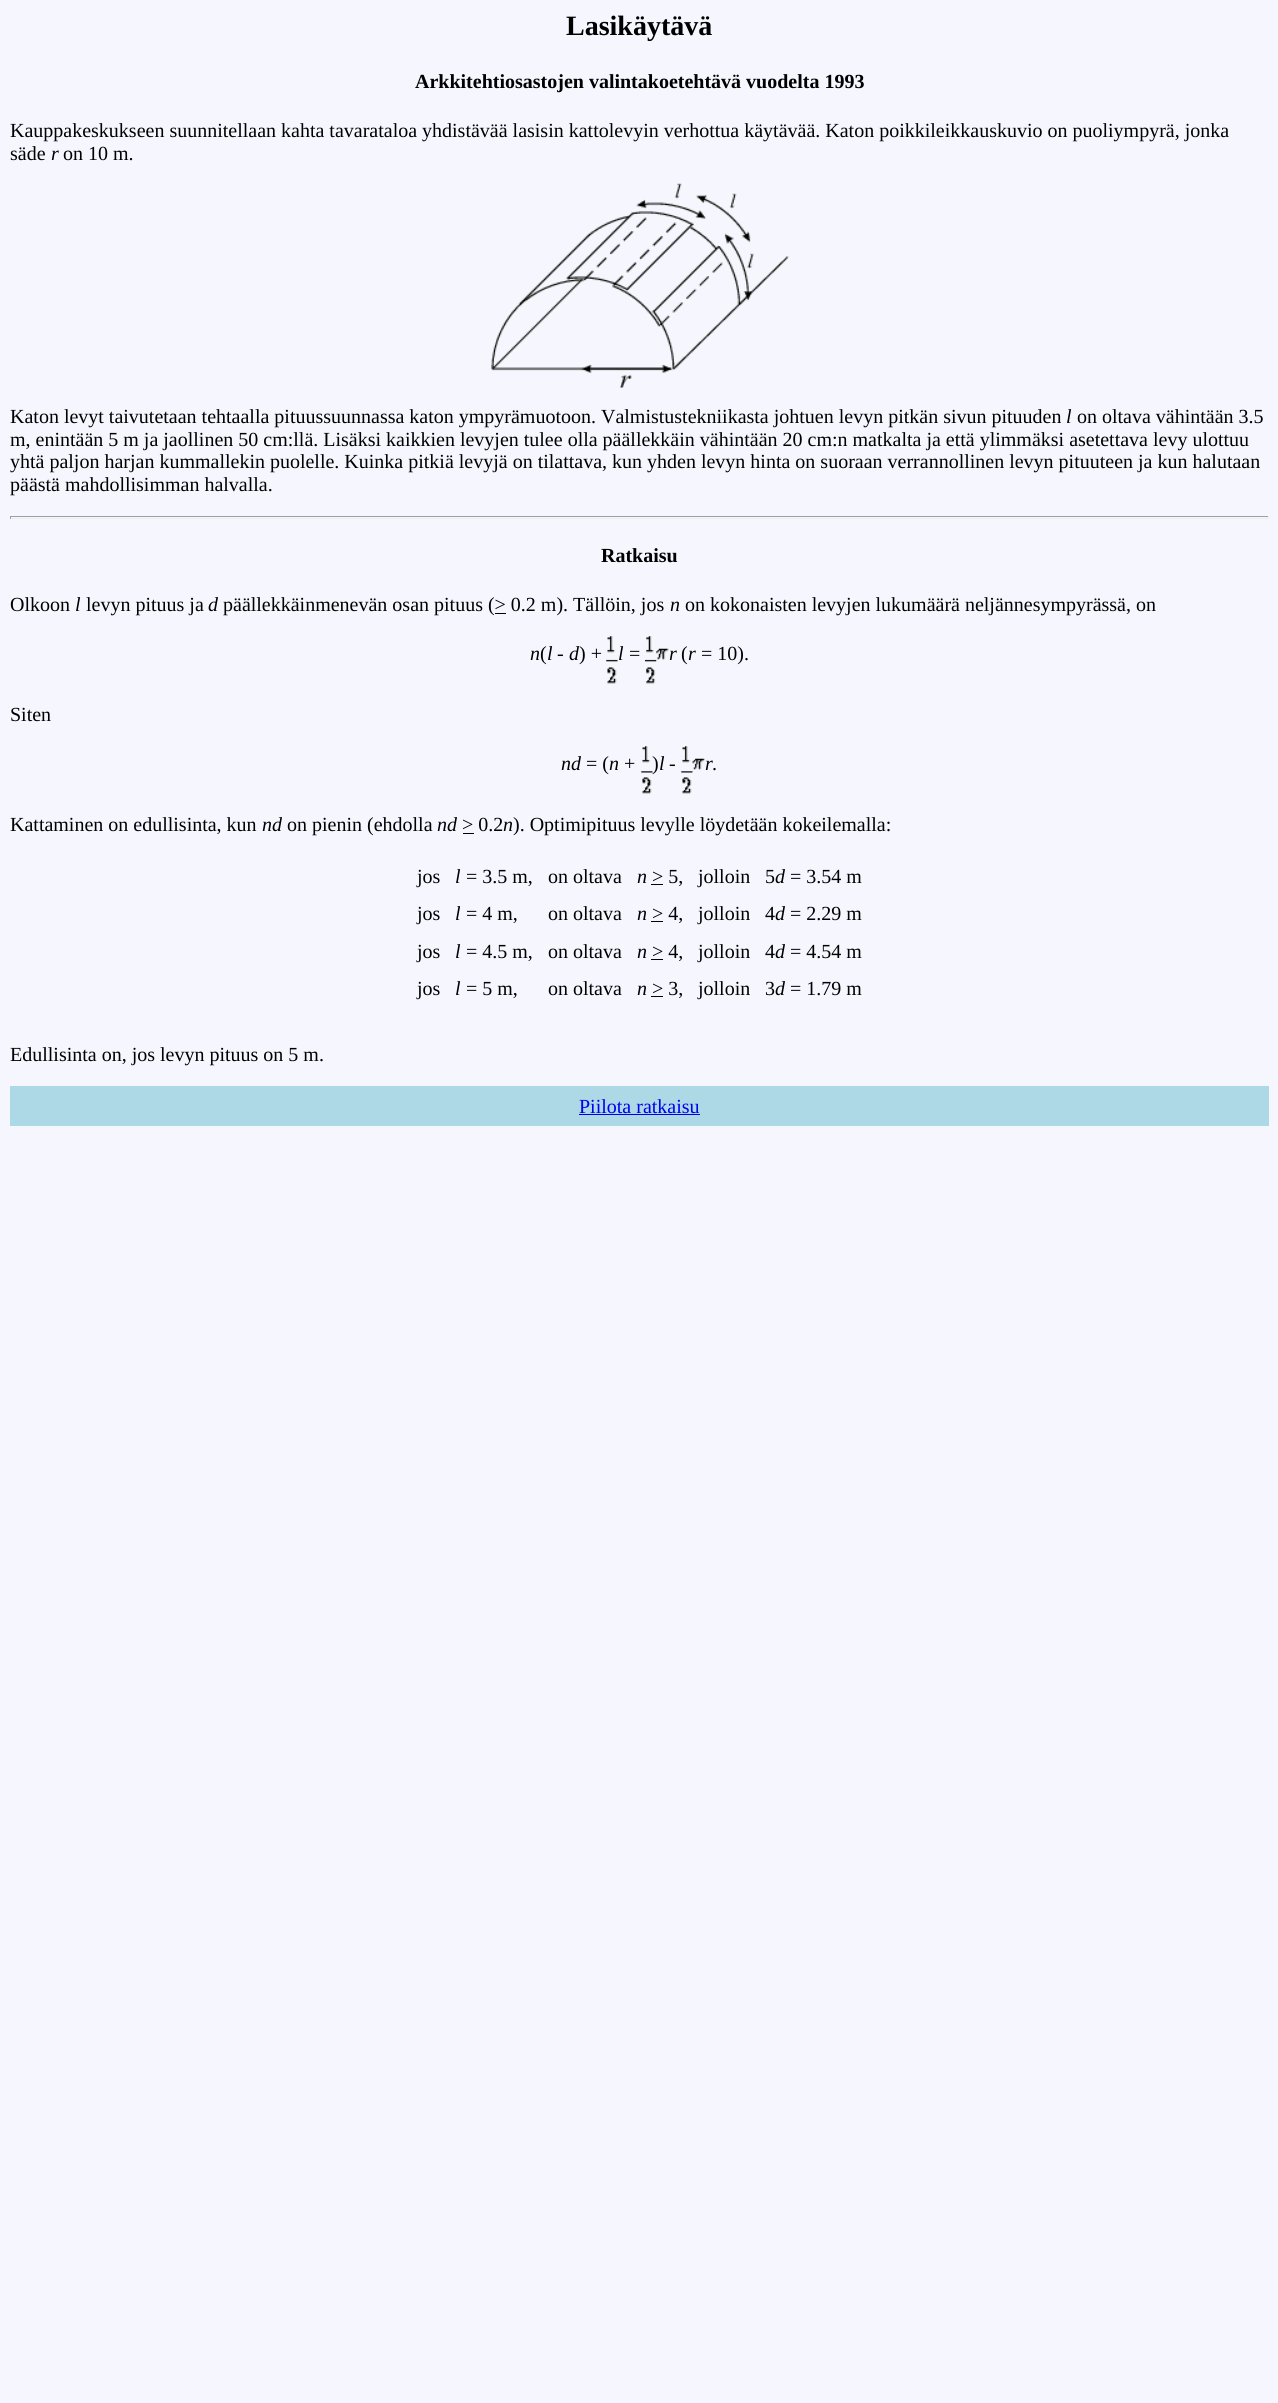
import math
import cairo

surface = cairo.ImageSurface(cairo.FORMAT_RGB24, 1278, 2403)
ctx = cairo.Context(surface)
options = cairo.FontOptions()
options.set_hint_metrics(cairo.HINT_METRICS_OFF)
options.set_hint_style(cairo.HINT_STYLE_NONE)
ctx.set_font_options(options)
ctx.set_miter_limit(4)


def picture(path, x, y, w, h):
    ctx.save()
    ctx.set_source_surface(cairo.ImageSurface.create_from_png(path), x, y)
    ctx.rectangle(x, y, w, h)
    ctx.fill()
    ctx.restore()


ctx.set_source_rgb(0.961, 0.961, 1)
ctx.paint()
ctx.select_font_face("Liberation Serif", cairo.FONT_SLANT_NORMAL, cairo.FONT_WEIGHT_BOLD)
ctx.set_font_size(28)
ctx.set_source_rgb(0, 0, 0)
ctx.move_to(566, 35)
ctx.show_text("Lasikäytävä")
ctx.set_font_size(20)
ctx.move_to(415, 88)
ctx.show_text("Arkkitehtiosastojen valintakoetehtävä vuodelta 1993")
ctx.select_font_face("Liberation Serif")
ctx.move_to(10, 137)
ctx.show_text("Kauppakeskukseen suunnitellaan kahta tavarataloa yhdistävää lasisin kattolevyin verhottua käytävää. Katon poikkileikkauskuvio on puoliympyrä, jonka")
ctx.move_to(10, 160)
ctx.show_text("säde")
ctx.select_font_face("Liberation Serif", cairo.FONT_SLANT_ITALIC)
ctx.move_to(51, 160)
ctx.show_text("r")
ctx.select_font_face("Liberation Serif")
ctx.move_to(63, 160)
ctx.show_text("on 10 m.")
picture("img1.png", 491, 183, 298, 205)
ctx.move_to(10, 423)
ctx.show_text("Katon levyt taivutetaan tehtaalla pituussuunnassa katon ympyrämuotoon. Valmistustekniikasta johtuen levyn pitkän sivun pituuden")
ctx.select_font_face("Liberation Serif", cairo.FONT_SLANT_ITALIC)
ctx.move_to(1066, 423)
ctx.show_text("l")
ctx.select_font_face("Liberation Serif")
ctx.move_to(1077, 423)
ctx.show_text("on oltava vähintään 3.5")
ctx.move_to(10, 446)
ctx.show_text("m, enintään 5 m ja jaollinen 50 cm:llä. Lisäksi kaikkien levyjen tulee olla päällekkäin vähintään 20 cm:n matkalta ja että ylimmäksi asetettava levy ulottuu")
ctx.move_to(10, 468)
ctx.show_text("yhtä paljon harjan kummallekin puolelle. Kuinka pitkiä levyjä on tilattava, kun yhden levyn hinta on suoraan verrannollinen levyn pituuteen ja kun halutaan")
ctx.move_to(10, 491)
ctx.show_text("päästä mahdollisimman halvalla.")
ctx.set_source_rgb(0.624, 0.624, 0.624)
ctx.rectangle(10, 516, 1259, 1)
ctx.fill()
ctx.set_source_rgb(0.933, 0.933, 0.933)
ctx.rectangle(1268, 516, 1, 3)
ctx.fill()
ctx.rectangle(10, 518, 1259, 1)
ctx.fill()
ctx.set_source_rgb(0.624, 0.624, 0.624)
ctx.rectangle(10, 516, 1, 3)
ctx.fill()
ctx.select_font_face("Liberation Serif", cairo.FONT_SLANT_NORMAL, cairo.FONT_WEIGHT_BOLD)
ctx.set_source_rgb(0, 0, 0)
ctx.move_to(601, 562)
ctx.show_text("Ratkaisu")
ctx.select_font_face("Liberation Serif")
ctx.move_to(10, 611)
ctx.show_text("Olkoon")
ctx.select_font_face("Liberation Serif", cairo.FONT_SLANT_ITALIC)
ctx.move_to(75, 611)
ctx.show_text("l")
ctx.select_font_face("Liberation Serif")
ctx.move_to(86, 611)
ctx.show_text("levyn pituus ja")
ctx.select_font_face("Liberation Serif", cairo.FONT_SLANT_ITALIC)
ctx.move_to(208, 611)
ctx.show_text("d")
ctx.select_font_face("Liberation Serif")
ctx.move_to(223, 611)
ctx.show_text("päällekkäinmenevän osan pituus (> 0.2 m). Tällöin, jos")
ctx.select_font_face("Liberation Serif", cairo.FONT_SLANT_ITALIC)
ctx.move_to(670, 611)
ctx.show_text("n")
ctx.select_font_face("Liberation Serif")
ctx.move_to(685, 611)
ctx.show_text("on kokonaisten levyjen lukumäärä neljännesympyrässä, on")
ctx.rectangle(495, 613, 11, 1)
ctx.fill()
ctx.select_font_face("Liberation Serif", cairo.FONT_SLANT_ITALIC)
ctx.move_to(530, 660)
ctx.show_text("n")
ctx.select_font_face("Liberation Serif")
ctx.move_to(540, 660)
ctx.show_text("(")
ctx.select_font_face("Liberation Serif", cairo.FONT_SLANT_ITALIC)
ctx.move_to(547, 660)
ctx.show_text("l")
ctx.select_font_face("Liberation Serif")
ctx.move_to(557, 660)
ctx.show_text("-")
ctx.select_font_face("Liberation Serif", cairo.FONT_SLANT_ITALIC)
ctx.move_to(569, 660)
ctx.show_text("d")
ctx.select_font_face("Liberation Serif")
ctx.move_to(579, 660)
ctx.show_text(") +")
picture("img2.png", 606, 636, 12, 48)
ctx.select_font_face("Liberation Serif", cairo.FONT_SLANT_ITALIC)
ctx.move_to(618, 660)
ctx.show_text("l")
ctx.select_font_face("Liberation Serif")
ctx.move_to(629, 660)
ctx.show_text("=")
picture("img3.png", 645, 636, 12, 48)
picture("img4.png", 656, 648, 13, 12)
ctx.select_font_face("Liberation Serif", cairo.FONT_SLANT_ITALIC)
ctx.move_to(669, 660)
ctx.show_text("r")
ctx.select_font_face("Liberation Serif")
ctx.move_to(681, 660)
ctx.show_text("(")
ctx.select_font_face("Liberation Serif", cairo.FONT_SLANT_ITALIC)
ctx.move_to(688, 660)
ctx.show_text("r")
ctx.select_font_face("Liberation Serif")
ctx.move_to(701, 660)
ctx.show_text("= 10).")
ctx.move_to(10, 721)
ctx.show_text("Siten")
ctx.select_font_face("Liberation Serif", cairo.FONT_SLANT_ITALIC)
ctx.move_to(561, 770)
ctx.show_text("nd")
ctx.select_font_face("Liberation Serif")
ctx.move_to(586, 770)
ctx.show_text("= (")
ctx.select_font_face("Liberation Serif", cairo.FONT_SLANT_ITALIC)
ctx.move_to(609, 770)
ctx.show_text("n")
ctx.select_font_face("Liberation Serif")
ctx.move_to(624, 770)
ctx.show_text("+")
picture("img5.png", 641, 746, 12, 48)
ctx.move_to(652, 770)
ctx.show_text(")")
ctx.select_font_face("Liberation Serif", cairo.FONT_SLANT_ITALIC)
ctx.move_to(659, 770)
ctx.show_text("l")
ctx.select_font_face("Liberation Serif")
ctx.move_to(669, 770)
ctx.show_text("-")
picture("img5.png", 681, 746, 12, 48)
picture("img6.png", 692, 758, 13, 12)
ctx.select_font_face("Liberation Serif", cairo.FONT_SLANT_ITALIC)
ctx.move_to(705, 770)
ctx.show_text("r")
ctx.select_font_face("Liberation Serif")
ctx.move_to(712, 770)
ctx.show_text(".")
ctx.move_to(10, 831)
ctx.show_text("Kattaminen on edullisinta, kun")
ctx.select_font_face("Liberation Serif", cairo.FONT_SLANT_ITALIC)
ctx.move_to(262, 831)
ctx.show_text("nd")
ctx.select_font_face("Liberation Serif")
ctx.move_to(287, 831)
ctx.show_text("on pienin (ehdolla")
ctx.select_font_face("Liberation Serif", cairo.FONT_SLANT_ITALIC)
ctx.move_to(437, 831)
ctx.show_text("nd")
ctx.select_font_face("Liberation Serif")
ctx.move_to(462, 831)
ctx.show_text("> 0.2")
ctx.rectangle(463, 833, 11, 1)
ctx.fill()
ctx.select_font_face("Liberation Serif", cairo.FONT_SLANT_ITALIC)
ctx.move_to(503, 831)
ctx.show_text("n")
ctx.select_font_face("Liberation Serif")
ctx.move_to(513, 831)
ctx.show_text("). Optimipituus levylle löydetään kokeilemalla:")
ctx.move_to(417, 883)
ctx.show_text("jos")
ctx.select_font_face("Liberation Serif", cairo.FONT_SLANT_ITALIC)
ctx.move_to(455, 883)
ctx.show_text("l")
ctx.select_font_face("Liberation Serif")
ctx.move_to(466, 883)
ctx.show_text("= 3.5 m,")
ctx.move_to(548, 883)
ctx.show_text("on oltava")
ctx.select_font_face("Liberation Serif", cairo.FONT_SLANT_ITALIC)
ctx.move_to(637, 883)
ctx.show_text("n")
ctx.rectangle(651, 884, 12, 1)
ctx.fill()
ctx.select_font_face("Liberation Serif")
ctx.move_to(652, 883)
ctx.show_text("> 5,")
ctx.move_to(698, 883)
ctx.show_text("jolloin")
ctx.move_to(765, 883)
ctx.show_text("5")
ctx.select_font_face("Liberation Serif", cairo.FONT_SLANT_ITALIC)
ctx.move_to(775, 883)
ctx.show_text("d")
ctx.select_font_face("Liberation Serif")
ctx.move_to(790, 883)
ctx.show_text("= 3.54 m")
ctx.move_to(417, 920)
ctx.show_text("jos")
ctx.select_font_face("Liberation Serif", cairo.FONT_SLANT_ITALIC)
ctx.move_to(455, 920)
ctx.show_text("l")
ctx.select_font_face("Liberation Serif")
ctx.move_to(466, 920)
ctx.show_text("= 4 m,")
ctx.move_to(548, 920)
ctx.show_text("on oltava")
ctx.select_font_face("Liberation Serif", cairo.FONT_SLANT_ITALIC)
ctx.move_to(637, 920)
ctx.show_text("n")
ctx.rectangle(651, 921, 12, 1)
ctx.fill()
ctx.select_font_face("Liberation Serif")
ctx.move_to(652, 920)
ctx.show_text("> 4,")
ctx.move_to(698, 920)
ctx.show_text("jolloin")
ctx.move_to(765, 920)
ctx.show_text("4")
ctx.select_font_face("Liberation Serif", cairo.FONT_SLANT_ITALIC)
ctx.move_to(775, 920)
ctx.show_text("d")
ctx.select_font_face("Liberation Serif")
ctx.move_to(790, 920)
ctx.show_text("= 2.29 m")
ctx.move_to(417, 958)
ctx.show_text("jos")
ctx.select_font_face("Liberation Serif", cairo.FONT_SLANT_ITALIC)
ctx.move_to(455, 958)
ctx.show_text("l")
ctx.select_font_face("Liberation Serif")
ctx.move_to(466, 958)
ctx.show_text("= 4.5 m,")
ctx.move_to(548, 958)
ctx.show_text("on oltava")
ctx.select_font_face("Liberation Serif", cairo.FONT_SLANT_ITALIC)
ctx.move_to(637, 958)
ctx.show_text("n")
ctx.rectangle(651, 959, 12, 1)
ctx.fill()
ctx.select_font_face("Liberation Serif")
ctx.move_to(652, 958)
ctx.show_text("> 4,")
ctx.move_to(698, 958)
ctx.show_text("jolloin")
ctx.move_to(765, 958)
ctx.show_text("4")
ctx.select_font_face("Liberation Serif", cairo.FONT_SLANT_ITALIC)
ctx.move_to(775, 958)
ctx.show_text("d")
ctx.select_font_face("Liberation Serif")
ctx.move_to(790, 958)
ctx.show_text("= 4.54 m")
ctx.move_to(417, 995)
ctx.show_text("jos")
ctx.select_font_face("Liberation Serif", cairo.FONT_SLANT_ITALIC)
ctx.move_to(455, 995)
ctx.show_text("l")
ctx.select_font_face("Liberation Serif")
ctx.move_to(466, 995)
ctx.show_text("= 5 m,")
ctx.move_to(548, 995)
ctx.show_text("on oltava")
ctx.select_font_face("Liberation Serif", cairo.FONT_SLANT_ITALIC)
ctx.move_to(637, 995)
ctx.show_text("n")
ctx.rectangle(651, 996, 12, 1)
ctx.fill()
ctx.select_font_face("Liberation Serif")
ctx.move_to(652, 995)
ctx.show_text("> 3,")
ctx.move_to(698, 995)
ctx.show_text("jolloin")
ctx.move_to(765, 995)
ctx.show_text("3")
ctx.select_font_face("Liberation Serif", cairo.FONT_SLANT_ITALIC)
ctx.move_to(775, 995)
ctx.show_text("d")
ctx.select_font_face("Liberation Serif")
ctx.move_to(790, 995)
ctx.show_text("= 1.79 m")
ctx.move_to(10, 1061)
ctx.show_text("Edullisinta on, jos levyn pituus on 5 m.")
ctx.set_source_rgb(0.678, 0.847, 0.902)
ctx.rectangle(10, 1086, 1259, 40)
ctx.fill()
ctx.set_source_rgb(0, 0, 0.933)
ctx.move_to(579, 1113)
ctx.show_text("Piilota ratkaisu")
ctx.rectangle(579, 1114, 121, 1)
ctx.fill()
surface.write_to_png("page.png")
